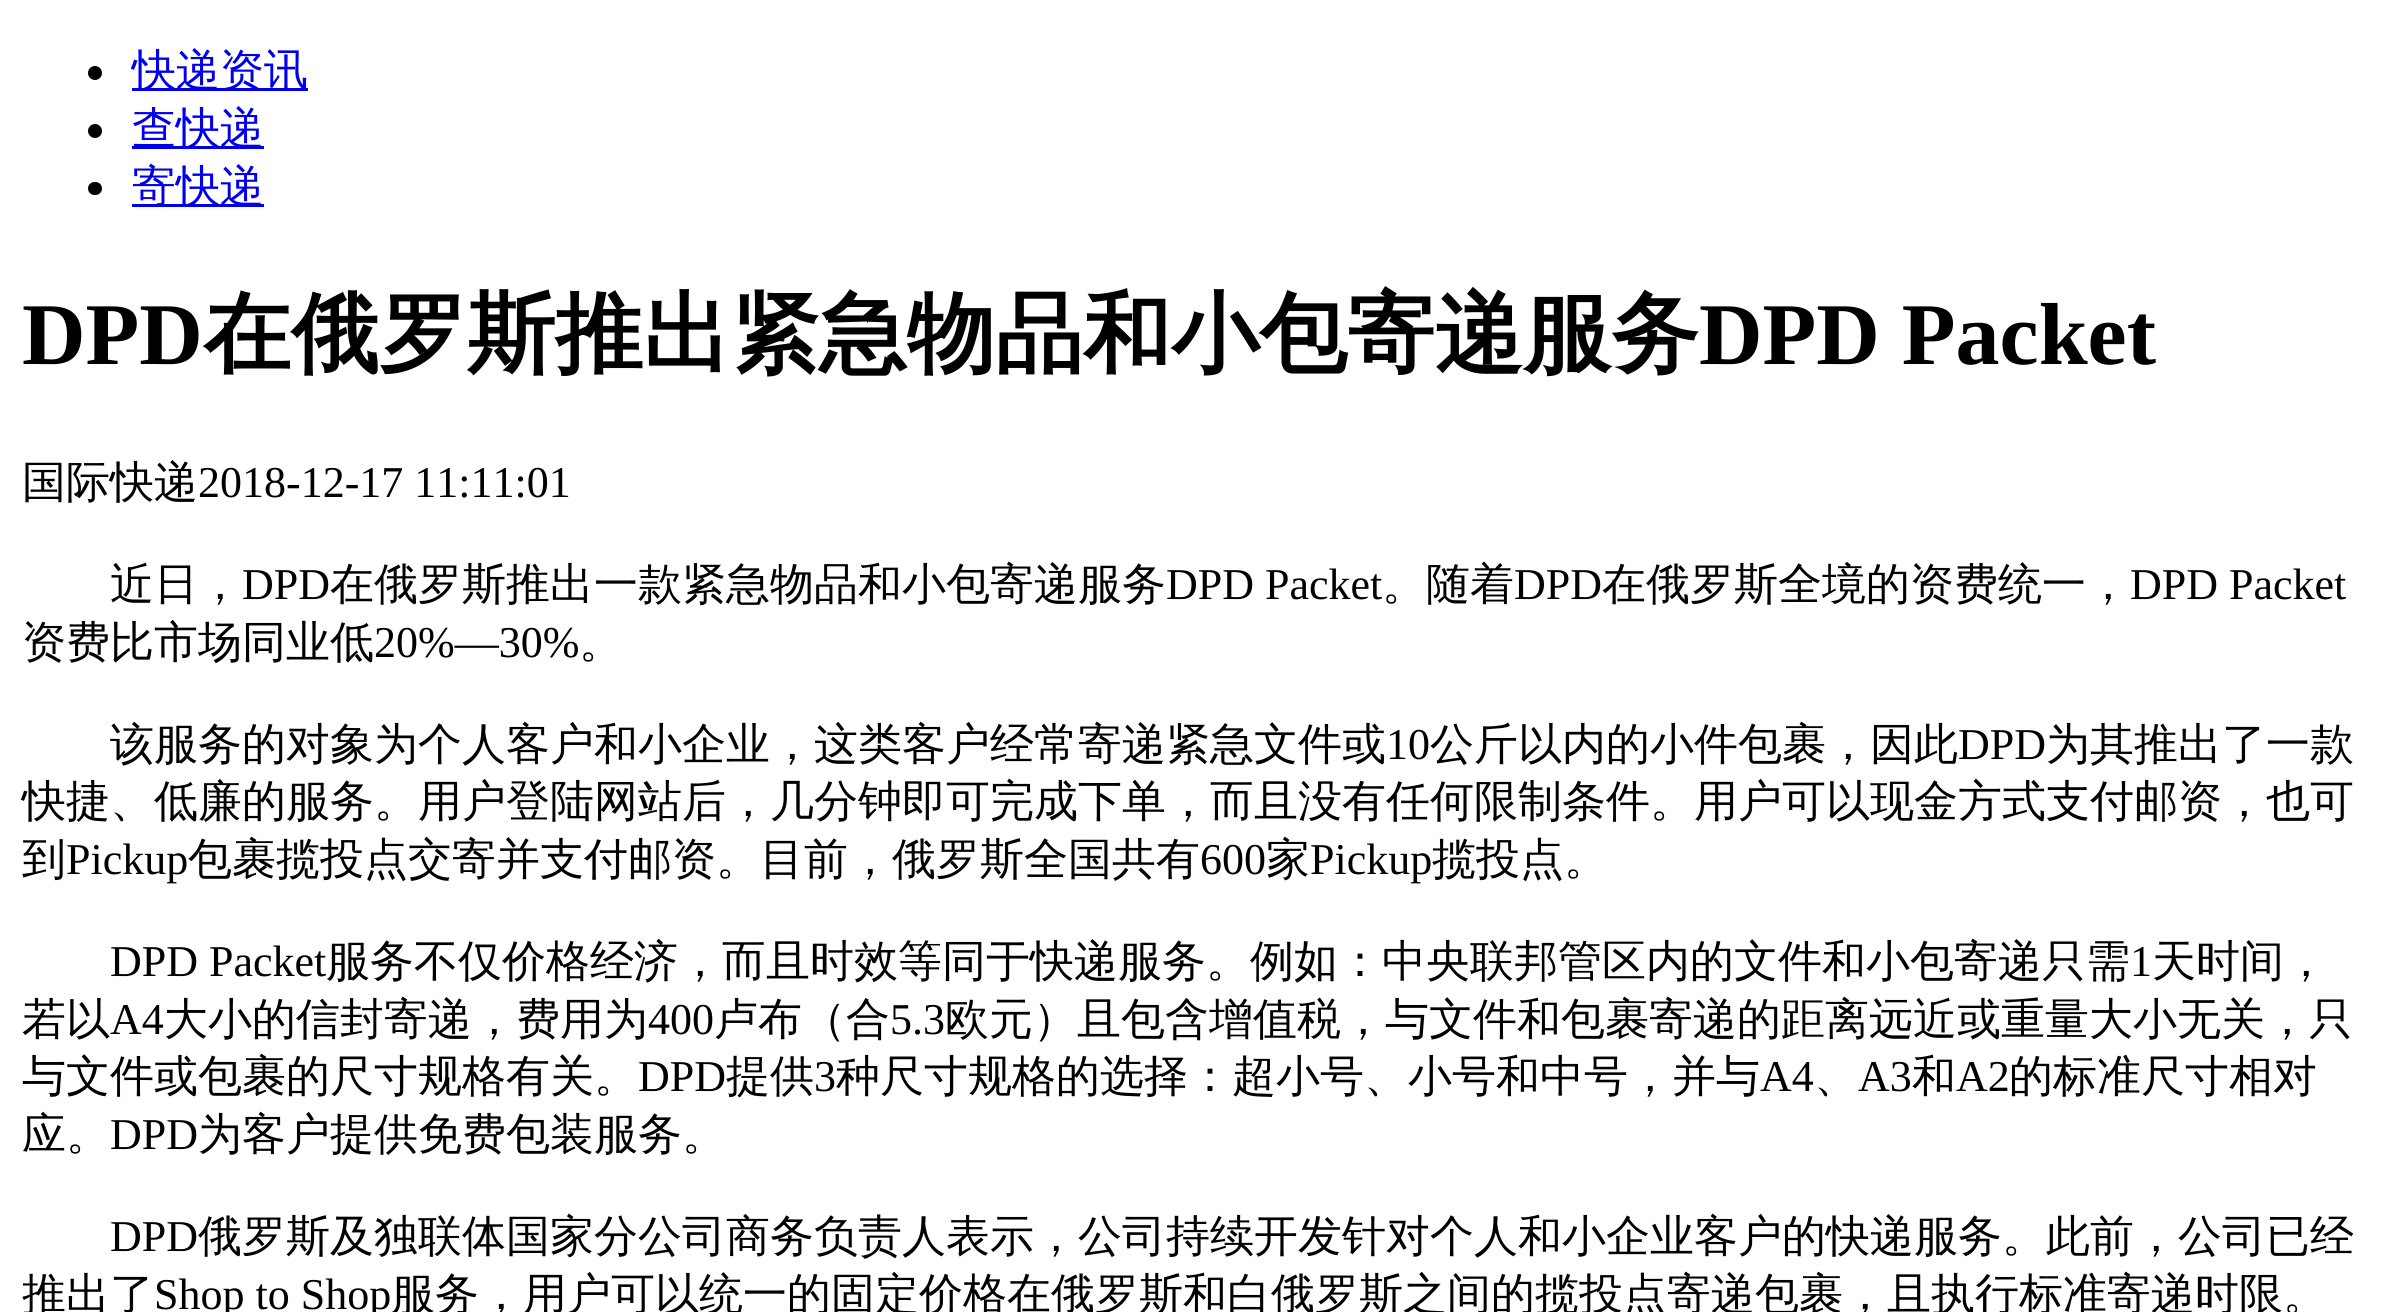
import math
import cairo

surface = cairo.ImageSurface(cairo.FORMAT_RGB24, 2390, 1312)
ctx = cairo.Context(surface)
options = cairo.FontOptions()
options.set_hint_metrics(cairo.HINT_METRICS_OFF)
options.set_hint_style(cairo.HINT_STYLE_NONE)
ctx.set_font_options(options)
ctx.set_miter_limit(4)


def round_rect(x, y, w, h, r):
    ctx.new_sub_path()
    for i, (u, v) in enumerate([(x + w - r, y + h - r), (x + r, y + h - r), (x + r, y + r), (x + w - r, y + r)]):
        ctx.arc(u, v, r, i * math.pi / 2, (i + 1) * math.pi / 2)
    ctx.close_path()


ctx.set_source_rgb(1, 1, 1)
ctx.paint()
ctx.set_source_rgb(0, 0, 0)
ctx.arc(95, 73, 7, 0, 2 * math.pi)
ctx.fill()
ctx.set_source_rgb(0, 0, 0.933)
ctx.rectangle(132, 88, 176, 3)
ctx.fill()
ctx.select_font_face("WenQuanYi Zen Hei Medium")
ctx.set_font_size(44)
ctx.move_to(132, 85)
ctx.show_text("快递资讯")
ctx.set_source_rgb(0, 0, 0)
ctx.new_path()
ctx.arc(95, 131, 7, 0, 2 * math.pi)
ctx.fill()
ctx.set_source_rgb(0, 0, 0.933)
ctx.rectangle(132, 146, 132, 3)
ctx.fill()
ctx.move_to(132, 143)
ctx.show_text("查快递")
ctx.set_source_rgb(0, 0, 0)
round_rect(88, 182, 14, 13, 6.5)
ctx.fill()
ctx.set_source_rgb(0, 0, 0.933)
ctx.rectangle(132, 204, 132, 3)
ctx.fill()
ctx.move_to(132, 201)
ctx.show_text("寄快递")
ctx.select_font_face("Liberation Serif", cairo.FONT_SLANT_NORMAL, cairo.FONT_WEIGHT_BOLD)
ctx.set_font_size(88)
ctx.set_source_rgb(0, 0, 0)
ctx.move_to(22, 364)
ctx.show_text("DPD")
ctx.select_font_face("WenQuanYi Zen Hei", cairo.FONT_SLANT_NORMAL, cairo.FONT_WEIGHT_BOLD)
ctx.move_to(203, 364)
ctx.show_text("在俄罗斯推出紧急物品和小包寄递服务")
ctx.select_font_face("Liberation Serif", cairo.FONT_SLANT_NORMAL, cairo.FONT_WEIGHT_BOLD)
ctx.move_to(1699, 364)
ctx.show_text("DPD Packet")
ctx.select_font_face("WenQuanYi Zen Hei Medium")
ctx.set_font_size(44)
ctx.move_to(22, 497)
ctx.show_text("国际快递")
ctx.select_font_face("Liberation Serif")
ctx.move_to(198, 497)
ctx.show_text("2018-12-17 11:11:01")
ctx.select_font_face("WenQuanYi Zen Hei Medium")
ctx.move_to(110, 599)
ctx.show_text("近日，")
ctx.select_font_face("Liberation Serif")
ctx.move_to(242, 599)
ctx.show_text("DPD")
ctx.select_font_face("WenQuanYi Zen Hei Medium")
ctx.move_to(330, 599)
ctx.show_text("在俄罗斯推出一款紧急物品和小包寄递服务")
ctx.select_font_face("Liberation Serif")
ctx.move_to(1166, 599)
ctx.show_text("DPD Packet")
ctx.select_font_face("WenQuanYi Zen Hei Medium")
ctx.move_to(1382, 599)
ctx.show_text("。随着")
ctx.select_font_face("Liberation Serif")
ctx.move_to(1514, 599)
ctx.show_text("DPD")
ctx.select_font_face("WenQuanYi Zen Hei Medium")
ctx.move_to(1602, 599)
ctx.show_text("在俄罗斯全境的资费统一，")
ctx.select_font_face("Liberation Serif")
ctx.move_to(2130, 599)
ctx.show_text("DPD Packet")
ctx.select_font_face("WenQuanYi Zen Hei Medium")
ctx.move_to(22, 657)
ctx.show_text("资费比市场同业低")
ctx.select_font_face("Liberation Serif")
ctx.move_to(374, 657)
ctx.show_text("20%—30%")
ctx.select_font_face("WenQuanYi Zen Hei Medium")
ctx.move_to(579, 657)
ctx.show_text("。")
ctx.move_to(110, 759)
ctx.show_text("该服务的对象为个人客户和小企业，这类客户经常寄递紧急文件或")
ctx.select_font_face("Liberation Serif")
ctx.move_to(1386, 759)
ctx.show_text("10")
ctx.select_font_face("WenQuanYi Zen Hei Medium")
ctx.move_to(1430, 759)
ctx.show_text("公斤以内的小件包裹，因此")
ctx.select_font_face("Liberation Serif")
ctx.move_to(1958, 759)
ctx.show_text("DPD")
ctx.select_font_face("WenQuanYi Zen Hei Medium")
ctx.move_to(2046, 759)
ctx.show_text("为其推出了一款")
ctx.move_to(22, 816)
ctx.show_text("快捷、低廉的服务。用户登陆网站后，几分钟即可完成下单，而且没有任何限制条件。用户可以现金方式支付邮资，也可")
ctx.move_to(22, 874)
ctx.show_text("到")
ctx.select_font_face("Liberation Serif")
ctx.move_to(66, 874)
ctx.show_text("Pickup")
ctx.select_font_face("WenQuanYi Zen Hei Medium")
ctx.move_to(188, 874)
ctx.show_text("包裹揽投点交寄并支付邮资。目前，俄罗斯全国共有")
ctx.select_font_face("Liberation Serif")
ctx.move_to(1200, 874)
ctx.show_text("600")
ctx.select_font_face("WenQuanYi Zen Hei Medium")
ctx.move_to(1266, 874)
ctx.show_text("家")
ctx.select_font_face("Liberation Serif")
ctx.move_to(1310, 874)
ctx.show_text("Pickup")
ctx.select_font_face("WenQuanYi Zen Hei Medium")
ctx.move_to(1432, 874)
ctx.show_text("揽投点。")
ctx.select_font_face("Liberation Serif")
ctx.move_to(110, 976)
ctx.show_text("DPD Packet")
ctx.select_font_face("WenQuanYi Zen Hei Medium")
ctx.move_to(326, 976)
ctx.show_text("服务不仅价格经济，而且时效等同于快递服务。例如：中央联邦管区内的文件和小包寄递只需")
ctx.select_font_face("Liberation Serif")
ctx.move_to(2130, 976)
ctx.show_text("1")
ctx.select_font_face("WenQuanYi Zen Hei Medium")
ctx.move_to(2152, 976)
ctx.show_text("天时间，")
ctx.move_to(22, 1034)
ctx.show_text("若以")
ctx.select_font_face("Liberation Serif")
ctx.move_to(110, 1034)
ctx.show_text("A4")
ctx.select_font_face("WenQuanYi Zen Hei Medium")
ctx.move_to(164, 1034)
ctx.show_text("大小的信封寄递，费用为")
ctx.select_font_face("Liberation Serif")
ctx.move_to(648, 1034)
ctx.show_text("400")
ctx.select_font_face("WenQuanYi Zen Hei Medium")
ctx.move_to(714, 1034)
ctx.show_text("卢布（合")
ctx.select_font_face("Liberation Serif")
ctx.move_to(890, 1034)
ctx.show_text("5.3")
ctx.select_font_face("WenQuanYi Zen Hei Medium")
ctx.move_to(945, 1034)
ctx.show_text("欧元）且包含增值税，与文件和包裹寄递的距离远近或重量大小无关，只")
ctx.move_to(22, 1091)
ctx.show_text("与文件或包裹的尺寸规格有关。")
ctx.select_font_face("Liberation Serif")
ctx.move_to(638, 1091)
ctx.show_text("DPD")
ctx.select_font_face("WenQuanYi Zen Hei Medium")
ctx.move_to(726, 1091)
ctx.show_text("提供")
ctx.select_font_face("Liberation Serif")
ctx.move_to(814, 1091)
ctx.show_text("3")
ctx.select_font_face("WenQuanYi Zen Hei Medium")
ctx.move_to(836, 1091)
ctx.show_text("种尺寸规格的选择：超小号、小号和中号，并与")
ctx.select_font_face("Liberation Serif")
ctx.move_to(1760, 1091)
ctx.show_text("A4")
ctx.select_font_face("WenQuanYi Zen Hei Medium")
ctx.move_to(1814, 1091)
ctx.show_text("、")
ctx.select_font_face("Liberation Serif")
ctx.move_to(1858, 1091)
ctx.show_text("A3")
ctx.select_font_face("WenQuanYi Zen Hei Medium")
ctx.move_to(1912, 1091)
ctx.show_text("和")
ctx.select_font_face("Liberation Serif")
ctx.move_to(1956, 1091)
ctx.show_text("A2")
ctx.select_font_face("WenQuanYi Zen Hei Medium")
ctx.move_to(2009, 1091)
ctx.show_text("的标准尺寸相对")
ctx.move_to(22, 1149)
ctx.show_text("应。")
ctx.select_font_face("Liberation Serif")
ctx.move_to(110, 1149)
ctx.show_text("DPD")
ctx.select_font_face("WenQuanYi Zen Hei Medium")
ctx.move_to(198, 1149)
ctx.show_text("为客户提供免费包装服务。")
ctx.select_font_face("Liberation Serif")
ctx.move_to(110, 1251)
ctx.show_text("DPD")
ctx.select_font_face("WenQuanYi Zen Hei Medium")
ctx.move_to(198, 1251)
ctx.show_text("俄罗斯及独联体国家分公司商务负责人表示，公司持续开发针对个人和小企业客户的快递服务。此前，公司已经")
ctx.move_to(22, 1309)
ctx.show_text("推出了")
ctx.select_font_face("Liberation Serif")
ctx.move_to(154, 1309)
ctx.show_text("Shop to Shop")
ctx.select_font_face("WenQuanYi Zen Hei Medium")
ctx.move_to(391, 1309)
ctx.show_text("服务，用户可以统一的固定价格在俄罗斯和白俄罗斯之间的揽投点寄递包裹，且执行标准寄递时限。")
surface.write_to_png("page.png")
